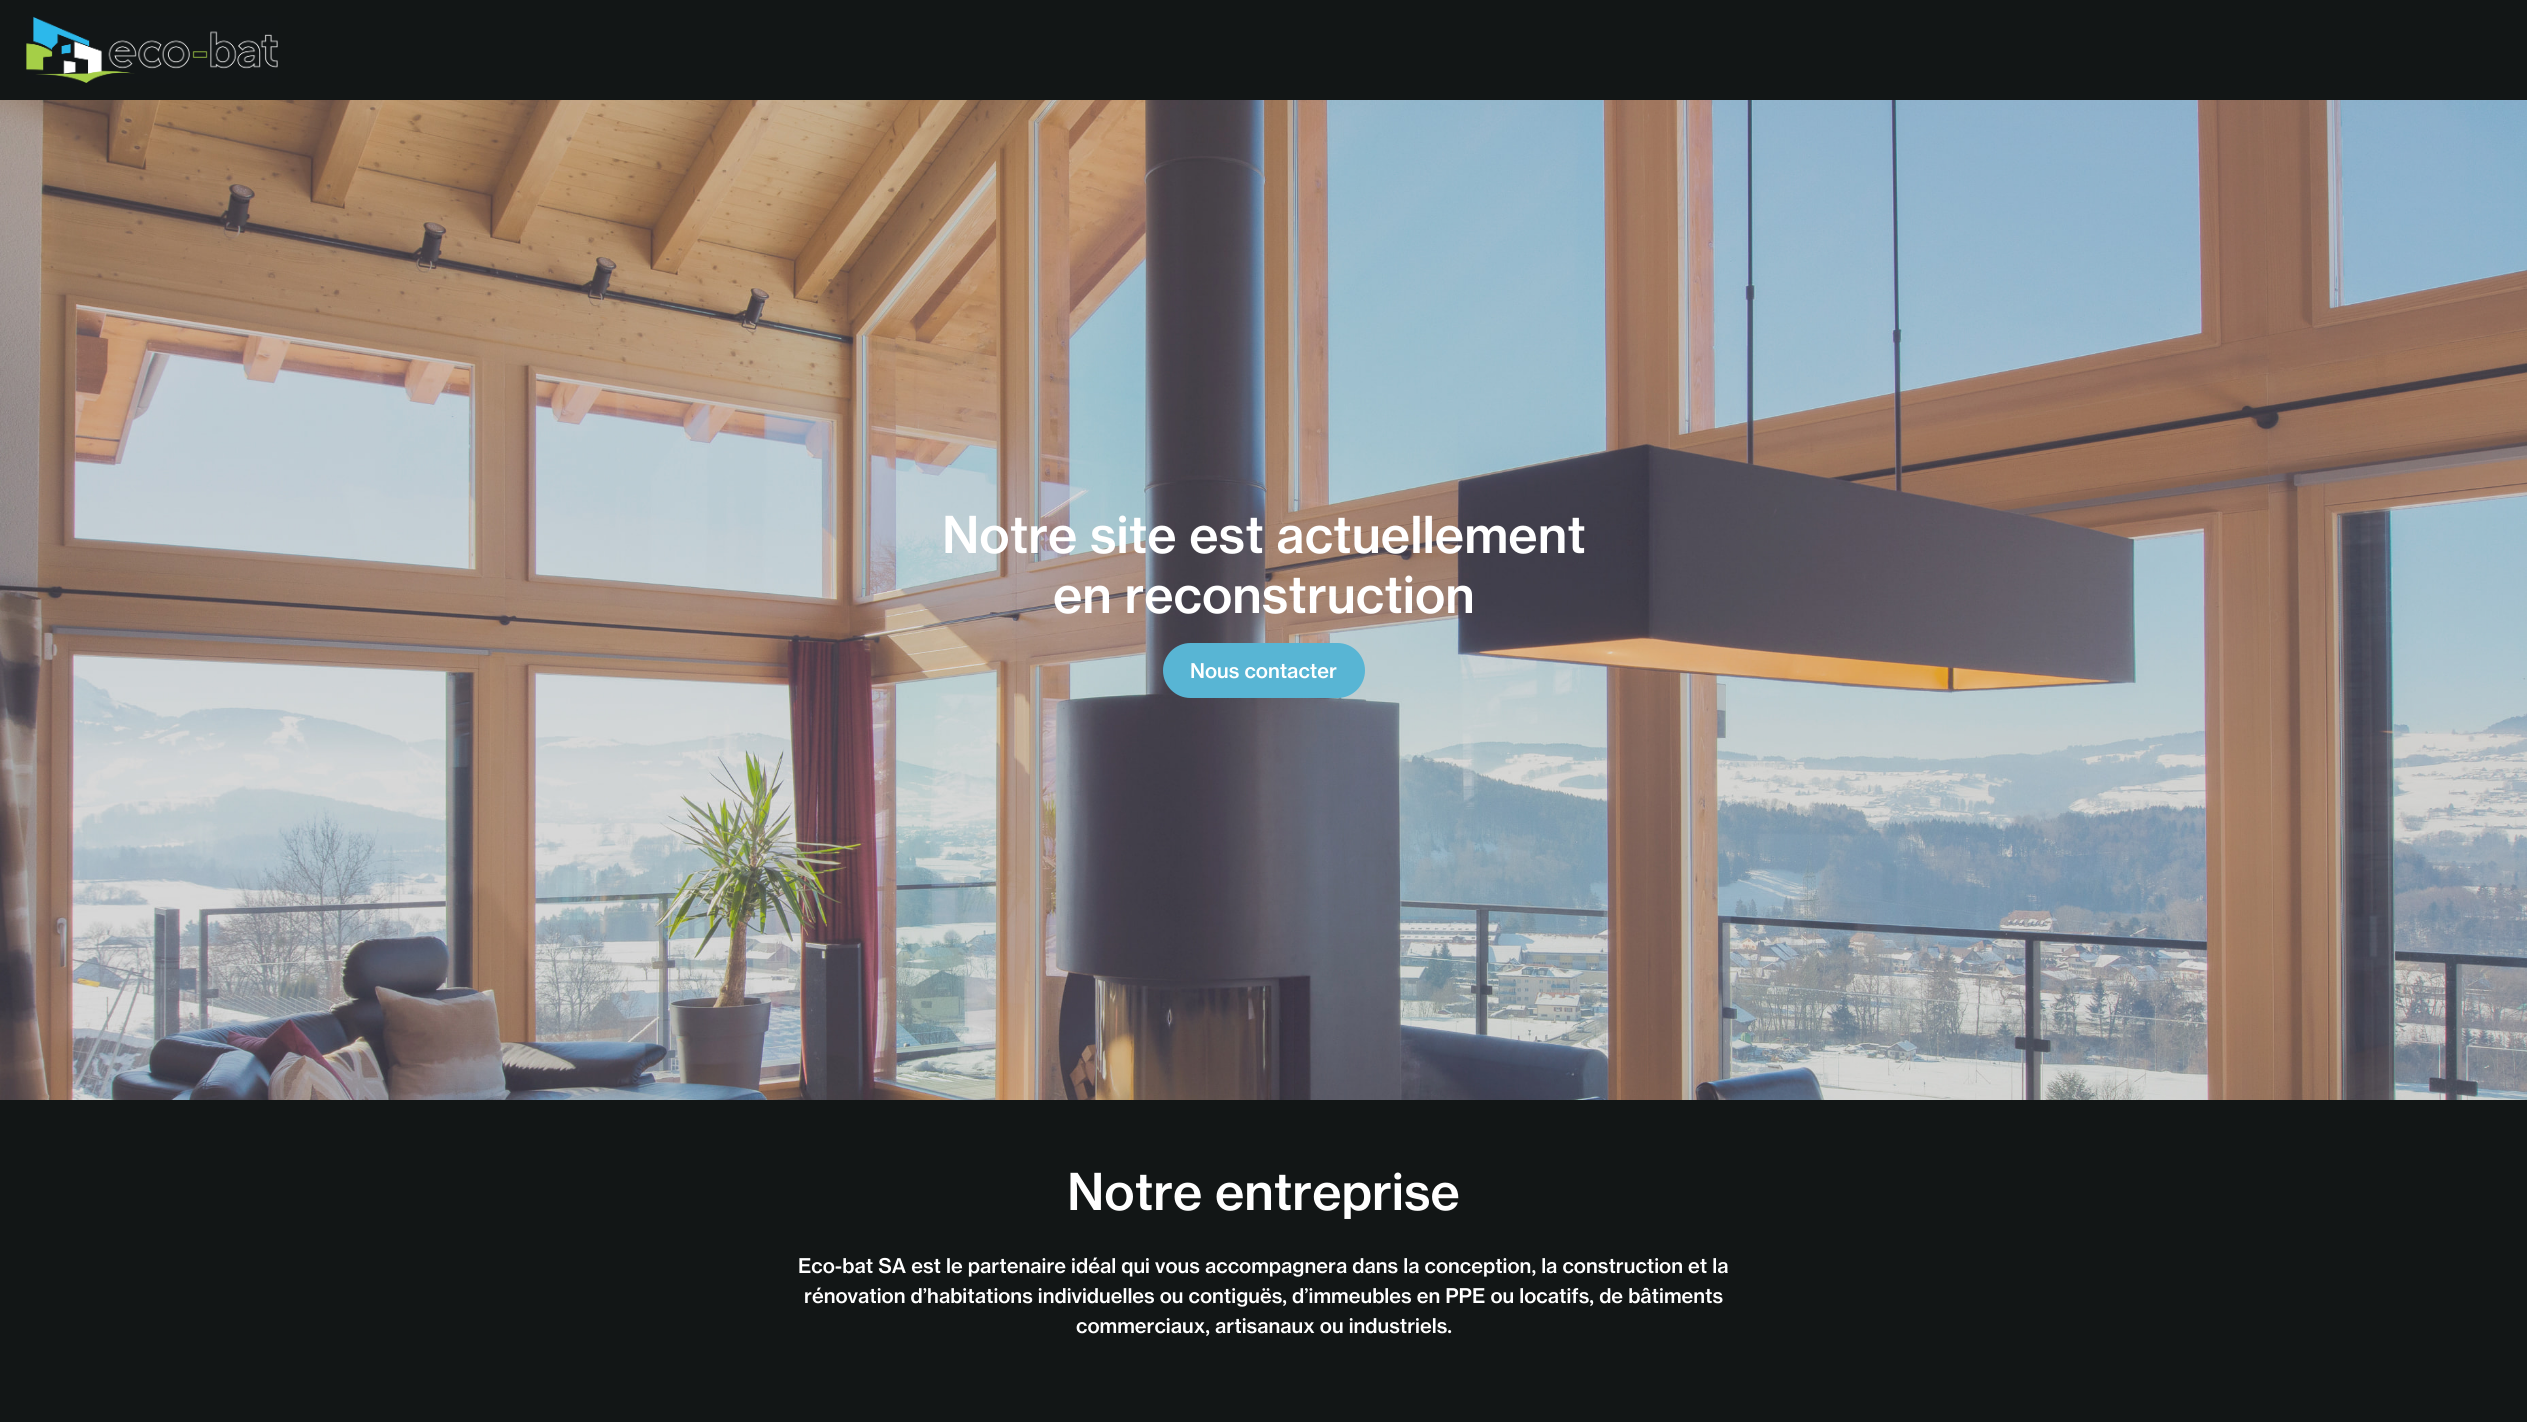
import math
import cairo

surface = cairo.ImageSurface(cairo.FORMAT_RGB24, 2527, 1422)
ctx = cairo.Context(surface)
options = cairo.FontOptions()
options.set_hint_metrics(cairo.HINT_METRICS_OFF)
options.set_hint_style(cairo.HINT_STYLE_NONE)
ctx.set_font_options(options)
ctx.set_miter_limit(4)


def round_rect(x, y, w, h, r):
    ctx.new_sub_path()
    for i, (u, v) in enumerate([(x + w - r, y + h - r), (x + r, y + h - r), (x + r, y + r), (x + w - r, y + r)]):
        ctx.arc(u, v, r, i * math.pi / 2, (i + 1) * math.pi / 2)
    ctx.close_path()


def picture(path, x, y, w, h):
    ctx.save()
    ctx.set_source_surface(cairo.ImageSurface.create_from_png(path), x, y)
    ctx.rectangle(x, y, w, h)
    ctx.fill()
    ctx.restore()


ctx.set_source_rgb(0.071, 0.086, 0.086)
ctx.paint()
picture("img1.png", 26, 16, 252, 67)
picture("img2.png", 0, 100, 2527, 1000)
ctx.select_font_face("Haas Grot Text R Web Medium")
ctx.set_font_size(50)
ctx.set_source_rgb(1, 1, 1)
ctx.move_to(942, 553)
ctx.show_text("Notre site est actuellement")
ctx.move_to(1053, 613)
ctx.show_text("en reconstruction")
ctx.set_source_rgb(0.345, 0.71, 0.831)
round_rect(1164.5, 644.5, 199, 52, 26)
ctx.fill_preserve()
ctx.set_line_width(3)
ctx.stroke()
ctx.set_font_size(20)
ctx.set_source_rgb(1, 1, 1)
ctx.move_to(1190, 678)
ctx.show_text("Nous contacter")
ctx.set_font_size(50)
ctx.move_to(1067, 1210)
ctx.show_text("Notre entreprise")
ctx.set_font_size(20)
ctx.move_to(798, 1273)
ctx.show_text("Eco-bat SA est le partenaire idéal qui vous accompagnera dans la conception, la construction et la")
ctx.move_to(804, 1303)
ctx.show_text("rénovation d’habitations individuelles ou contiguës, d’immeubles en PPE ou locatifs, de bâtiments")
ctx.move_to(1076, 1333)
ctx.show_text("commerciaux, artisanaux ou industriels.")
surface.write_to_png("page.png")
